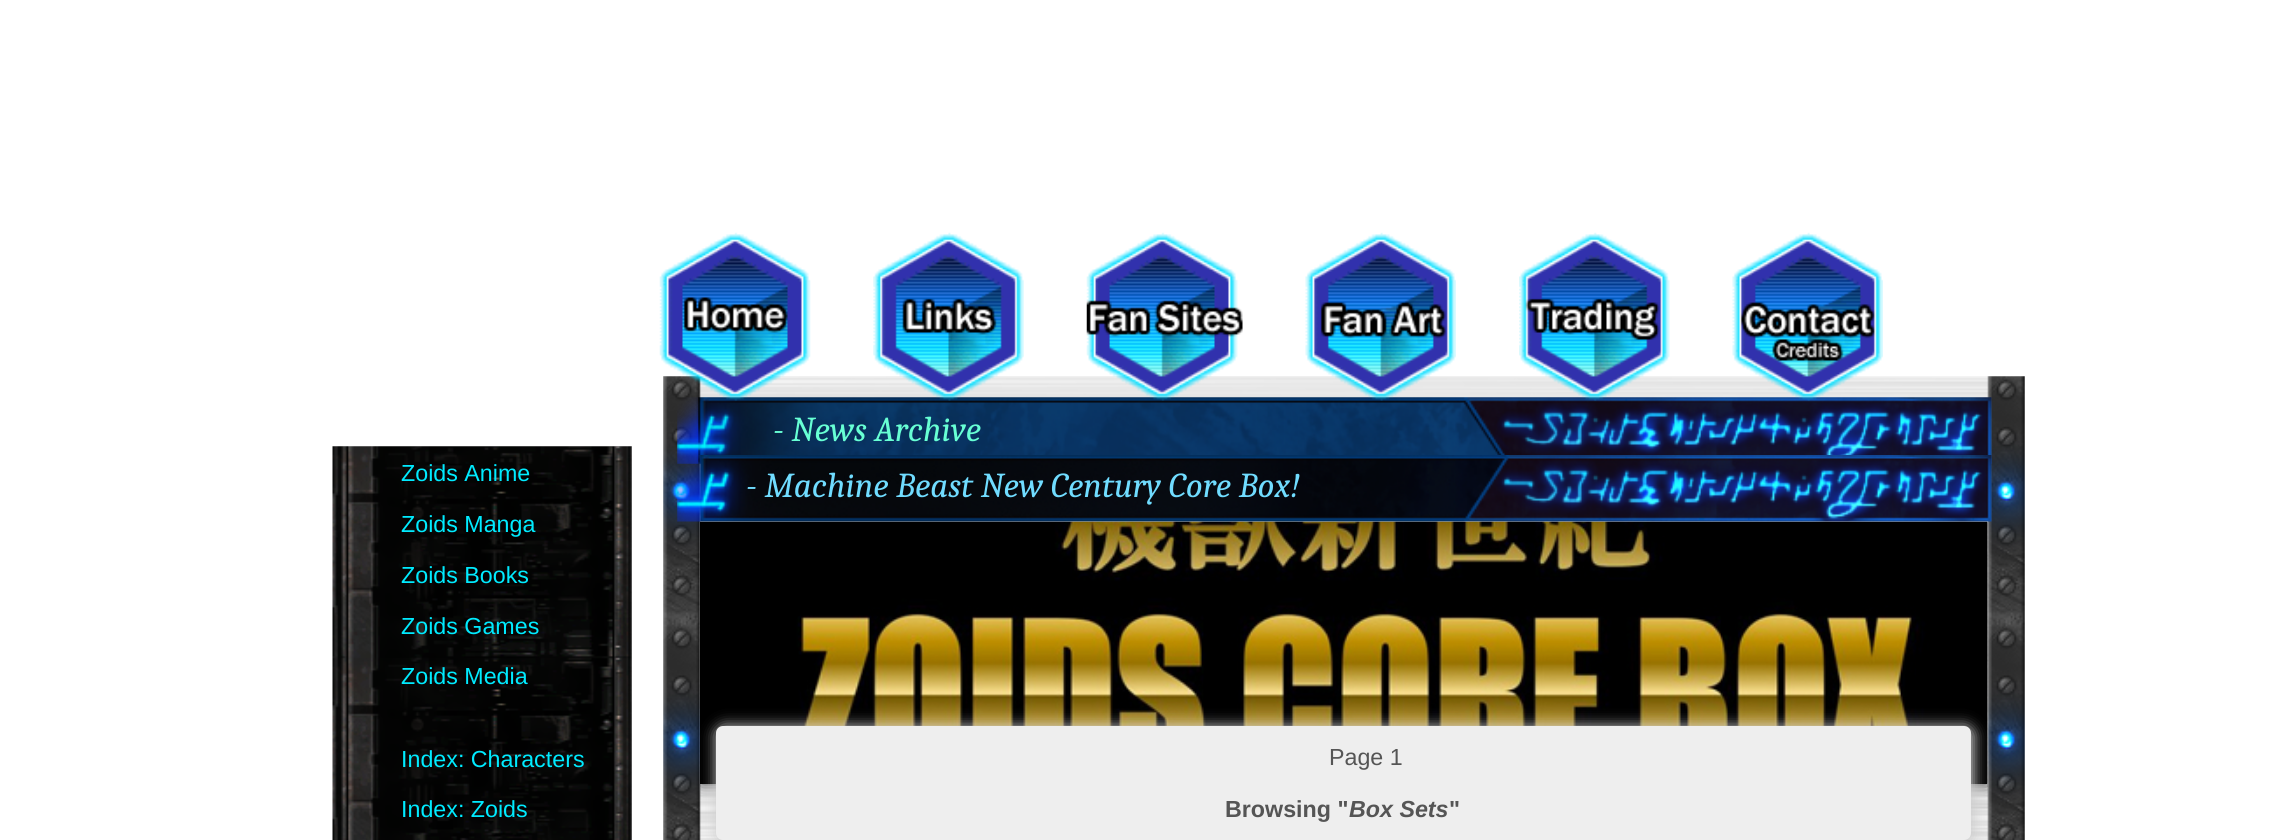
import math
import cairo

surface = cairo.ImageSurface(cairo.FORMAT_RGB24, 2291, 840)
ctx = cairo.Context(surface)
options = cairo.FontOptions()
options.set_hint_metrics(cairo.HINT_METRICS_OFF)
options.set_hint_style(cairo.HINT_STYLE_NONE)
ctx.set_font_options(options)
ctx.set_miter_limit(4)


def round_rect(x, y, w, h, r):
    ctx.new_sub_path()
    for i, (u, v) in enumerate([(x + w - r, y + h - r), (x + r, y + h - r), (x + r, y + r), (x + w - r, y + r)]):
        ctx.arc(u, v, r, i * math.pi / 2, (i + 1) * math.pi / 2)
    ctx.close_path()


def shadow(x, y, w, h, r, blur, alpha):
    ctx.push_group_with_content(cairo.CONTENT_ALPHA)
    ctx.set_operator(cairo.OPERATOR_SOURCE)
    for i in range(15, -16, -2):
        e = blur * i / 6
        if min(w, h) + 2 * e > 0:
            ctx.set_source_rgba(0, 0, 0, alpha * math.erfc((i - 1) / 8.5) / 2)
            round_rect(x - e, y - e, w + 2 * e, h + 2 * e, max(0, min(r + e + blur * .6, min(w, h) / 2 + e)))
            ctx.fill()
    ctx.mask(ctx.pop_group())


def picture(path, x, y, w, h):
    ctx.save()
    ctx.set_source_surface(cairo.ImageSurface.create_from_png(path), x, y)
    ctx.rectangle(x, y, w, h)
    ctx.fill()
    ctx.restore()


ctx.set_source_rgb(1, 1, 1)
ctx.paint()
picture("img8.png", 663, 376, 1362, 464)
picture("img9.png", 677, 397, 1315, 67)
picture("img1.png", 659, 232, 152, 169)
picture("img2.png", 873, 232, 151, 169)
picture("img3.png", 1086, 232, 157, 169)
picture("img4.png", 1305, 232, 151, 169)
picture("img5.png", 1519, 232, 151, 169)
picture("img6.png", 1732, 232, 151, 169)
picture("img7.png", 332, 446, 300, 394)
ctx.select_font_face("Liberation Sans")
ctx.set_font_size(23.25)
ctx.set_source_rgb(0, 0.918, 1)
ctx.move_to(401, 481)
ctx.show_text("Zoids Anime")
ctx.move_to(401, 532)
ctx.show_text("Zoids Manga")
ctx.move_to(401, 583)
ctx.show_text("Zoids Books")
ctx.move_to(401, 634)
ctx.show_text("Zoids Games")
ctx.move_to(401, 684)
ctx.show_text("Zoids Media")
ctx.move_to(401, 767)
ctx.show_text("Index: Characters")
ctx.move_to(401, 817)
ctx.show_text("Index: Zoids")
ctx.select_font_face("Caladea", cairo.FONT_SLANT_ITALIC)
ctx.set_font_size(35)
ctx.set_source_rgb(0.404, 1, 0.831)
ctx.move_to(773, 441)
ctx.show_text("- News Archive")
picture("img10.png", 677, 455, 1315, 67)
ctx.set_source_rgb(0.439, 0.863, 1)
ctx.move_to(746, 497)
ctx.show_text("- Machine Beast New Century Core Box!")
ctx.save()
ctx.rectangle(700, 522, 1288, 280)
ctx.clip()
ctx.set_source_rgb(0, 0, 0)
shadow(700, 522, 1288, 262, 0, 9, 0.75)
ctx.restore()
picture("img11.png", 700, 521, 1288, 263)
ctx.set_source_rgb(0.8, 0.8, 0.8)
shadow(716, 726, 1258, 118, 9, 7, 1)
ctx.set_source_rgb(0.933, 0.933, 0.933)
round_rect(716, 726, 1255, 114, 7)
ctx.fill()
ctx.select_font_face("Liberation Sans")
ctx.set_font_size(23.25)
ctx.set_source_rgb(0.333, 0.333, 0.333)
ctx.move_to(1329, 765)
ctx.show_text("Page 1")
ctx.select_font_face("Liberation Sans", cairo.FONT_SLANT_NORMAL, cairo.FONT_WEIGHT_BOLD)
ctx.move_to(1225, 817)
ctx.show_text("Browsing \"")
ctx.select_font_face("Liberation Sans", cairo.FONT_SLANT_ITALIC, cairo.FONT_WEIGHT_BOLD)
ctx.move_to(1349, 817)
ctx.show_text("Box Sets")
ctx.select_font_face("Liberation Sans", cairo.FONT_SLANT_NORMAL, cairo.FONT_WEIGHT_BOLD)
ctx.move_to(1449, 817)
ctx.show_text("\"")
surface.write_to_png("page.png")
